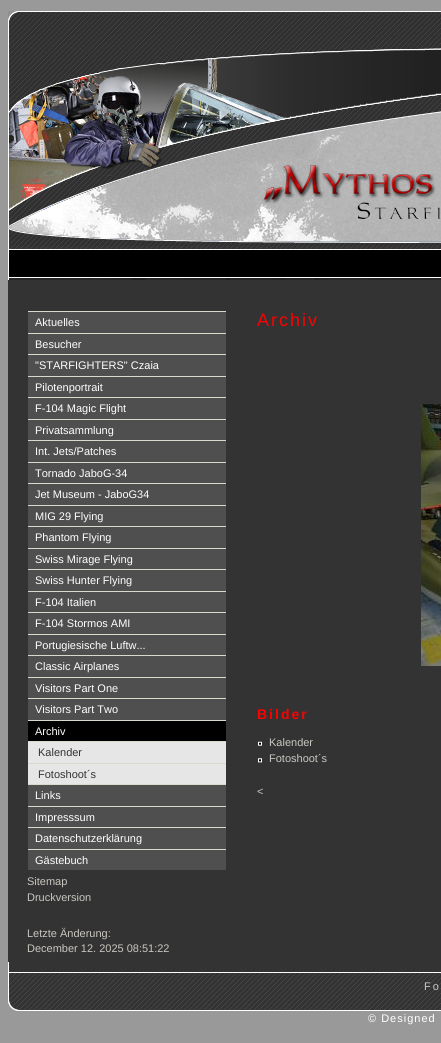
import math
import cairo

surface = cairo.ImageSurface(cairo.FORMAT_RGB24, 441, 1043)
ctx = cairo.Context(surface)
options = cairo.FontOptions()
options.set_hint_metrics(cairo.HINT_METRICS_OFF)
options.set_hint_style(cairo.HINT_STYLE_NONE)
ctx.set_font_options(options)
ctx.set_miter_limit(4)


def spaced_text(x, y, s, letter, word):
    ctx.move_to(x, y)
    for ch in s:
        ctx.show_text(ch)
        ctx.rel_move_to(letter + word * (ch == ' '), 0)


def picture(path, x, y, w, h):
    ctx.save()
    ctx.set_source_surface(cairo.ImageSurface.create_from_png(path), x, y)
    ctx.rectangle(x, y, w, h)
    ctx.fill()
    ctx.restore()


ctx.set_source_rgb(0.6, 0.6, 0.6)
ctx.paint()
picture("img1.png", 8, 11, 433, 67)
picture("img2.png", 8, 78, 433, 168)
picture("img3.png", 8, 246, 433, 34)
ctx.set_source_rgb(0.2, 0.2, 0.2)
ctx.rectangle(8, 280, 433, 682)
ctx.fill()
ctx.set_source_rgb(0.31, 0.31, 0.31)
ctx.rectangle(28, 312, 198, 21)
ctx.fill()
ctx.set_source_rgb(0.847, 0.855, 0.796)
ctx.rectangle(28, 311, 198, 1)
ctx.fill()
ctx.select_font_face("Liberation Sans")
ctx.set_font_size(11)
ctx.set_source_rgb(1, 1, 1)
ctx.move_to(35, 326)
ctx.show_text("Aktuelles")
ctx.set_source_rgb(0.31, 0.31, 0.31)
ctx.rectangle(28, 334, 198, 20)
ctx.fill()
ctx.set_source_rgb(0.847, 0.855, 0.796)
ctx.rectangle(28, 333, 198, 1)
ctx.fill()
ctx.set_source_rgb(1, 1, 1)
ctx.move_to(35, 348)
ctx.show_text("Besucher")
ctx.set_source_rgb(0.31, 0.31, 0.31)
ctx.rectangle(28, 355, 198, 21)
ctx.fill()
ctx.set_source_rgb(0.847, 0.855, 0.796)
ctx.rectangle(28, 354, 198, 1)
ctx.fill()
ctx.set_source_rgb(1, 1, 1)
ctx.move_to(35, 369)
ctx.show_text("\"STARFIGHTERS\" Czaia")
ctx.set_source_rgb(0.31, 0.31, 0.31)
ctx.rectangle(28, 377, 198, 20)
ctx.fill()
ctx.set_source_rgb(0.847, 0.855, 0.796)
ctx.rectangle(28, 376, 198, 1)
ctx.fill()
ctx.set_source_rgb(1, 1, 1)
ctx.move_to(35, 391)
ctx.show_text("Pilotenportrait")
ctx.set_source_rgb(0.31, 0.31, 0.31)
ctx.rectangle(28, 398, 198, 21)
ctx.fill()
ctx.set_source_rgb(0.847, 0.855, 0.796)
ctx.rectangle(28, 397, 198, 1)
ctx.fill()
ctx.set_source_rgb(1, 1, 1)
ctx.move_to(35, 412)
ctx.show_text("F-104 Magic Flight")
ctx.set_source_rgb(0.31, 0.31, 0.31)
ctx.rectangle(28, 420, 198, 20)
ctx.fill()
ctx.set_source_rgb(0.847, 0.855, 0.796)
ctx.rectangle(28, 419, 198, 1)
ctx.fill()
ctx.set_source_rgb(1, 1, 1)
ctx.move_to(35, 434)
ctx.show_text("Privatsammlung")
ctx.set_source_rgb(0.31, 0.31, 0.31)
ctx.rectangle(28, 441, 198, 21)
ctx.fill()
ctx.set_source_rgb(0.847, 0.855, 0.796)
ctx.rectangle(28, 440, 198, 1)
ctx.fill()
ctx.set_source_rgb(1, 1, 1)
ctx.move_to(35, 455)
ctx.show_text("Int. Jets/Patches")
ctx.set_source_rgb(0.31, 0.31, 0.31)
ctx.rectangle(28, 463, 198, 20)
ctx.fill()
ctx.set_source_rgb(0.847, 0.855, 0.796)
ctx.rectangle(28, 462, 198, 1)
ctx.fill()
ctx.set_source_rgb(1, 1, 1)
ctx.move_to(35, 477)
ctx.show_text("Tornado JaboG-34")
ctx.set_source_rgb(0.31, 0.31, 0.31)
ctx.rectangle(28, 484, 198, 21)
ctx.fill()
ctx.set_source_rgb(0.847, 0.855, 0.796)
ctx.rectangle(28, 483, 198, 1)
ctx.fill()
ctx.set_source_rgb(1, 1, 1)
ctx.move_to(35, 498)
ctx.show_text("Jet Museum - JaboG34")
ctx.set_source_rgb(0.31, 0.31, 0.31)
ctx.rectangle(28, 506, 198, 20)
ctx.fill()
ctx.set_source_rgb(0.847, 0.855, 0.796)
ctx.rectangle(28, 505, 198, 1)
ctx.fill()
ctx.set_source_rgb(1, 1, 1)
ctx.move_to(35, 520)
ctx.show_text("MIG 29 Flying")
ctx.set_source_rgb(0.31, 0.31, 0.31)
ctx.rectangle(28, 527, 198, 21)
ctx.fill()
ctx.set_source_rgb(0.847, 0.855, 0.796)
ctx.rectangle(28, 526, 198, 1)
ctx.fill()
ctx.set_source_rgb(1, 1, 1)
ctx.move_to(35, 541)
ctx.show_text("Phantom Flying")
ctx.set_source_rgb(0.31, 0.31, 0.31)
ctx.rectangle(28, 549, 198, 20)
ctx.fill()
ctx.set_source_rgb(0.847, 0.855, 0.796)
ctx.rectangle(28, 548, 198, 1)
ctx.fill()
ctx.set_source_rgb(1, 1, 1)
ctx.move_to(35, 563)
ctx.show_text("Swiss Mirage Flying")
ctx.set_source_rgb(0.31, 0.31, 0.31)
ctx.rectangle(28, 570, 198, 21)
ctx.fill()
ctx.set_source_rgb(0.847, 0.855, 0.796)
ctx.rectangle(28, 569, 198, 1)
ctx.fill()
ctx.set_source_rgb(1, 1, 1)
ctx.move_to(35, 584)
ctx.show_text("Swiss Hunter Flying")
ctx.set_source_rgb(0.31, 0.31, 0.31)
ctx.rectangle(28, 592, 198, 20)
ctx.fill()
ctx.set_source_rgb(0.847, 0.855, 0.796)
ctx.rectangle(28, 591, 198, 1)
ctx.fill()
ctx.set_source_rgb(1, 1, 1)
ctx.move_to(35, 606)
ctx.show_text("F-104 Italien")
ctx.set_source_rgb(0.31, 0.31, 0.31)
ctx.rectangle(28, 613, 198, 21)
ctx.fill()
ctx.set_source_rgb(0.847, 0.855, 0.796)
ctx.rectangle(28, 612, 198, 1)
ctx.fill()
ctx.set_source_rgb(1, 1, 1)
ctx.move_to(35, 627)
ctx.show_text("F-104 Stormos AMI")
ctx.set_source_rgb(0.31, 0.31, 0.31)
ctx.rectangle(28, 635, 198, 20)
ctx.fill()
ctx.set_source_rgb(0.847, 0.855, 0.796)
ctx.rectangle(28, 634, 198, 1)
ctx.fill()
ctx.set_source_rgb(1, 1, 1)
ctx.move_to(35, 649)
ctx.show_text("Portugiesische Luftw...")
ctx.set_source_rgb(0.31, 0.31, 0.31)
ctx.rectangle(28, 656, 198, 21)
ctx.fill()
ctx.set_source_rgb(0.847, 0.855, 0.796)
ctx.rectangle(28, 655, 198, 1)
ctx.fill()
ctx.set_source_rgb(1, 1, 1)
ctx.move_to(35, 670)
ctx.show_text("Classic Airplanes")
ctx.set_source_rgb(0.31, 0.31, 0.31)
ctx.rectangle(28, 678, 198, 20)
ctx.fill()
ctx.set_source_rgb(0.847, 0.855, 0.796)
ctx.rectangle(28, 677, 198, 1)
ctx.fill()
ctx.set_source_rgb(1, 1, 1)
ctx.move_to(35, 692)
ctx.show_text("Visitors Part One")
ctx.set_source_rgb(0.31, 0.31, 0.31)
ctx.rectangle(28, 699, 198, 21)
ctx.fill()
ctx.set_source_rgb(0.847, 0.855, 0.796)
ctx.rectangle(28, 698, 198, 1)
ctx.fill()
ctx.set_source_rgb(1, 1, 1)
ctx.move_to(35, 713)
ctx.show_text("Visitors Part Two")
ctx.set_source_rgb(0, 0, 0)
ctx.rectangle(28, 721, 198, 20)
ctx.fill()
ctx.set_source_rgb(0.847, 0.855, 0.796)
ctx.rectangle(28, 720, 198, 1)
ctx.fill()
ctx.set_source_rgb(1, 1, 1)
ctx.move_to(35, 735)
ctx.show_text("Archiv")
ctx.set_source_rgb(0.902, 0.902, 0.902)
ctx.rectangle(28, 742, 198, 21)
ctx.fill()
ctx.set_source_rgb(0.847, 0.855, 0.796)
ctx.rectangle(28, 741, 198, 1)
ctx.fill()
ctx.set_source_rgb(0.2, 0.2, 0.2)
ctx.move_to(38, 756)
ctx.show_text("Kalender")
ctx.set_source_rgb(0.902, 0.902, 0.902)
ctx.rectangle(28, 764, 198, 20)
ctx.fill()
ctx.set_source_rgb(0.847, 0.855, 0.796)
ctx.rectangle(28, 763, 198, 1)
ctx.fill()
ctx.set_source_rgb(0.2, 0.2, 0.2)
ctx.move_to(38, 778)
ctx.show_text("Fotoshoot´s")
ctx.set_source_rgb(0.31, 0.31, 0.31)
ctx.rectangle(28, 785, 198, 21)
ctx.fill()
ctx.set_source_rgb(0.847, 0.855, 0.796)
ctx.rectangle(28, 784, 198, 1)
ctx.fill()
ctx.set_source_rgb(1, 1, 1)
ctx.move_to(35, 799)
ctx.show_text("Links")
ctx.set_source_rgb(0.31, 0.31, 0.31)
ctx.rectangle(28, 807, 198, 20)
ctx.fill()
ctx.set_source_rgb(0.847, 0.855, 0.796)
ctx.rectangle(28, 806, 198, 1)
ctx.fill()
ctx.set_source_rgb(1, 1, 1)
ctx.move_to(35, 821)
ctx.show_text("Impresssum")
ctx.set_source_rgb(0.31, 0.31, 0.31)
ctx.rectangle(28, 828, 198, 21)
ctx.fill()
ctx.set_source_rgb(0.847, 0.855, 0.796)
ctx.rectangle(28, 827, 198, 1)
ctx.fill()
ctx.set_source_rgb(1, 1, 1)
ctx.move_to(35, 842)
ctx.show_text("Datenschutzerklärung")
ctx.set_source_rgb(0.31, 0.31, 0.31)
ctx.rectangle(28, 850, 198, 20)
ctx.fill()
ctx.set_source_rgb(0.847, 0.855, 0.796)
ctx.rectangle(28, 849, 198, 1)
ctx.fill()
ctx.set_source_rgb(1, 1, 1)
ctx.move_to(35, 864)
ctx.show_text("Gästebuch")
ctx.set_source_rgb(0.792, 0.78, 0.757)
ctx.move_to(27, 885)
ctx.show_text("Sitemap")
ctx.move_to(27, 901)
ctx.show_text("Druckversion")
ctx.move_to(27, 937)
ctx.show_text("Letzte Änderung:")
ctx.move_to(27, 952)
ctx.show_text("December 12. 2025 08:51:22")
ctx.set_font_size(18)
ctx.set_source_rgb(1, 0, 0)
spaced_text(257, 326, "Archiv", 2, 0)
picture("img4.png", 421, 404, 20, 262)
ctx.select_font_face("Liberation Sans", cairo.FONT_SLANT_NORMAL, cairo.FONT_WEIGHT_BOLD)
ctx.set_font_size(14)
spaced_text(257, 719, "Bilder", 2, 0)
picture("img5.png", 258, 741, 4, 5)
ctx.select_font_face("Liberation Sans")
ctx.set_font_size(11)
ctx.set_source_rgb(0.792, 0.78, 0.757)
ctx.move_to(269, 746)
ctx.show_text("Kalender")
picture("img6.png", 258, 758, 4, 5)
ctx.move_to(269, 762)
ctx.show_text("Fotoshoot´s")
ctx.move_to(257, 795)
ctx.show_text("<")
picture("img7.png", 8, 962, 433, 49)
spaced_text(424, 990, "Fo", 2, 0)
ctx.set_source_rgb(1, 1, 1)
spaced_text(368, 1022, "© Designed", 1, 0)
surface.write_to_png("page.png")
